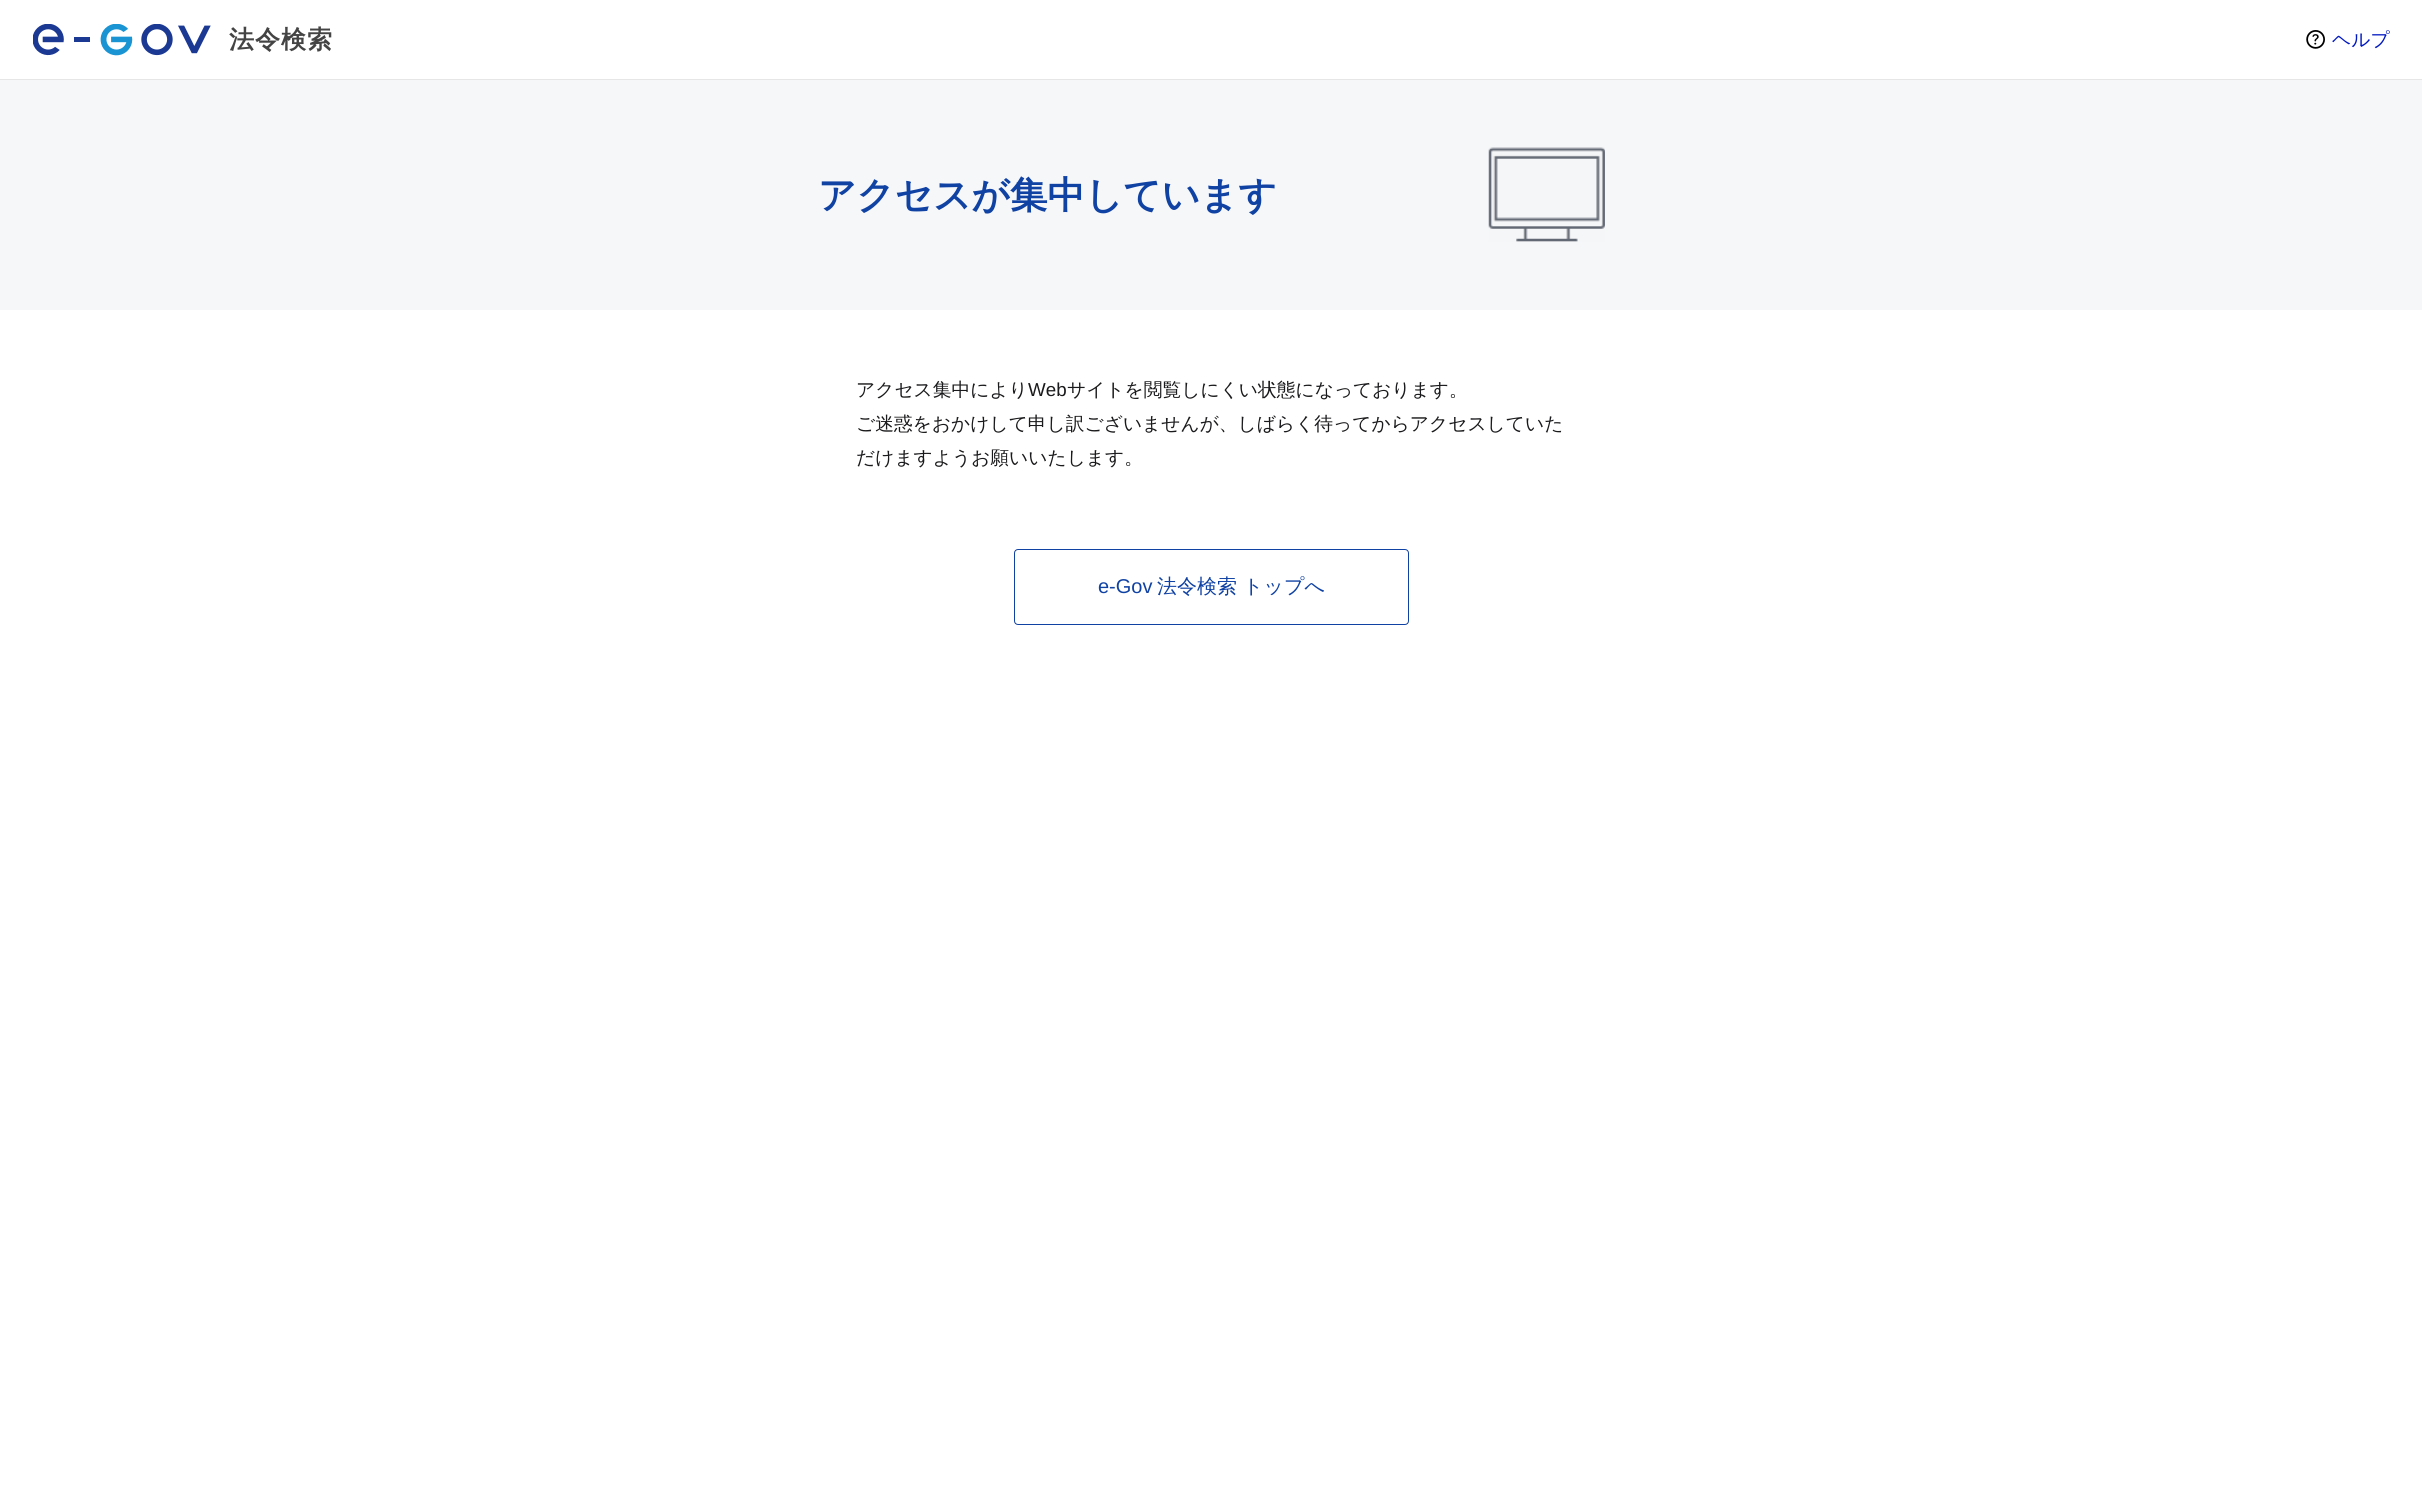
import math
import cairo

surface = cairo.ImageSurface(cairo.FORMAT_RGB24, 2422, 1512)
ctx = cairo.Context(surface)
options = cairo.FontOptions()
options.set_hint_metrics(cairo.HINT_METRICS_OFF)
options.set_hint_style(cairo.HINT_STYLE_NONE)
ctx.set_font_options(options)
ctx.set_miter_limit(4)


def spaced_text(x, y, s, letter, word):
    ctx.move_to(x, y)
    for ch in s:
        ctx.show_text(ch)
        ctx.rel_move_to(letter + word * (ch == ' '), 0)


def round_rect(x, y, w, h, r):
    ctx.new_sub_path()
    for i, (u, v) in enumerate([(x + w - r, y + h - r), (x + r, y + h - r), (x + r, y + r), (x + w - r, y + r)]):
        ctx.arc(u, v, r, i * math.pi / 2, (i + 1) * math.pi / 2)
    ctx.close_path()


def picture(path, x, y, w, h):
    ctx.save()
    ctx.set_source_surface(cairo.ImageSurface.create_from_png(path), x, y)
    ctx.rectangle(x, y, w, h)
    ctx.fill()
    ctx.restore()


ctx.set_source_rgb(1, 1, 1)
ctx.paint()
ctx.set_source_rgb(0.902, 0.902, 0.902)
ctx.rectangle(0, 79, 2422, 1)
ctx.fill()
picture("img1.png", 33, 24, 178, 32)
ctx.select_font_face("WenQuanYi Zen Hei", cairo.FONT_SLANT_NORMAL, cairo.FONT_WEIGHT_BOLD)
ctx.set_font_size(25)
ctx.set_source_rgb(0.267, 0.267, 0.267)
spaced_text(229, 48, "法令検索", 1, 0)
picture("img2.png", 2306, 30, 19, 19)
ctx.select_font_face("WenQuanYi Zen Hei Medium")
ctx.set_font_size(18.75)
ctx.set_source_rgb(0, 0.09, 0.757)
ctx.move_to(2332, 46)
ctx.show_text("ヘルプ")
ctx.set_source_rgb(0.961, 0.965, 0.973)
ctx.rectangle(0, 80, 2422, 230)
ctx.fill()
ctx.select_font_face("WenQuanYi Zen Hei", cairo.FONT_SLANT_NORMAL, cairo.FONT_WEIGHT_BOLD)
ctx.set_font_size(37.5)
ctx.set_source_rgb(0.063, 0.259, 0.643)
ctx.move_to(818, 208)
ctx.show_text("アクセスが集中しています")
picture("img3.png", 1488, 147, 117, 95)
ctx.select_font_face("WenQuanYi Zen Hei Medium")
ctx.set_font_size(18.75)
ctx.set_source_rgb(0.102, 0.102, 0.11)
ctx.move_to(856, 396)
ctx.show_text("アクセス集中により")
ctx.select_font_face("Liberation Sans")
ctx.move_to(1028, 396)
ctx.show_text("Web")
ctx.select_font_face("WenQuanYi Zen Hei Medium")
ctx.move_to(1067, 396)
ctx.show_text("サイトを閲覧しにくい状態になっております。")
ctx.move_to(856, 430)
ctx.show_text("ご迷惑をおかけして申し訳ございませんが、しばらく待ってからアクセスしていた")
ctx.move_to(856, 464)
ctx.show_text("だけますようお願いいたします。")
round_rect(1014.5, 549.5, 394, 75, 3.5)
ctx.set_source_rgb(0.063, 0.259, 0.643)
ctx.set_line_width(1)
ctx.stroke()
ctx.select_font_face("Liberation Sans")
ctx.set_font_size(20)
ctx.move_to(1098, 593)
ctx.show_text("e-Gov")
ctx.select_font_face("WenQuanYi Zen Hei Medium")
ctx.move_to(1157, 593)
ctx.show_text("法令検索 トップへ")
surface.write_to_png("page.png")
